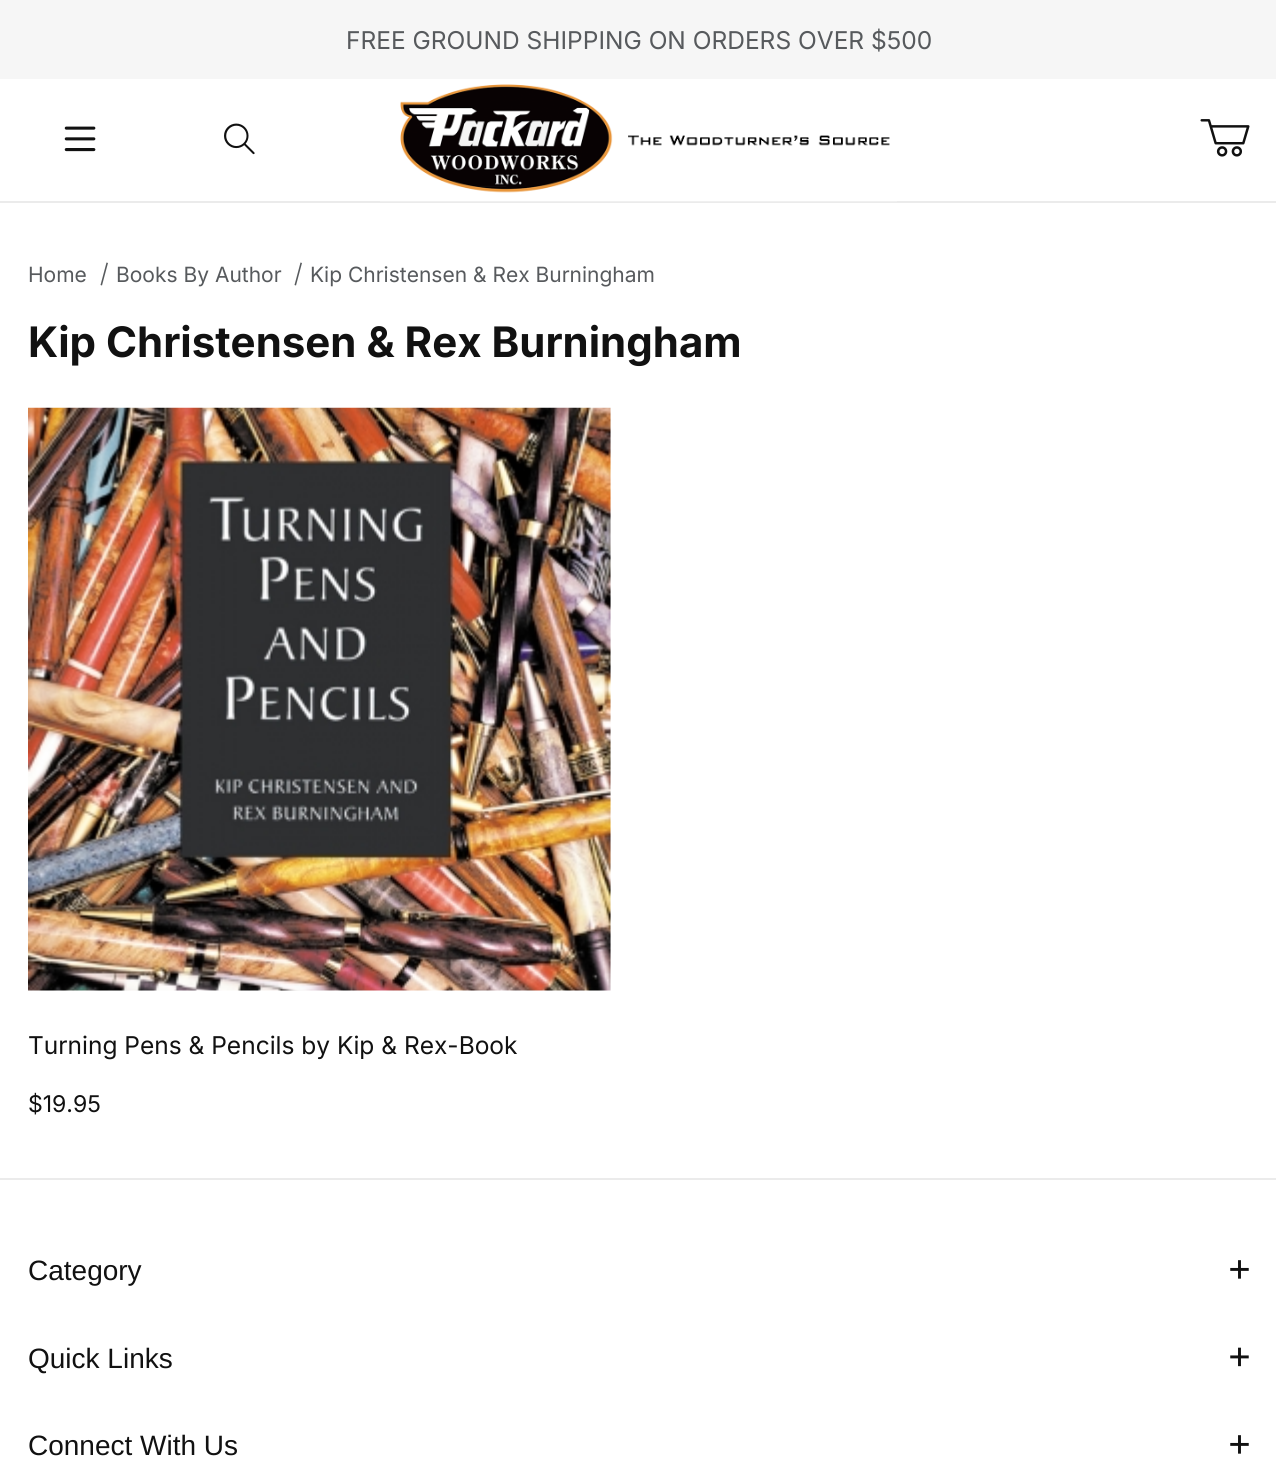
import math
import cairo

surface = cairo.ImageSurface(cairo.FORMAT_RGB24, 1276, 1477)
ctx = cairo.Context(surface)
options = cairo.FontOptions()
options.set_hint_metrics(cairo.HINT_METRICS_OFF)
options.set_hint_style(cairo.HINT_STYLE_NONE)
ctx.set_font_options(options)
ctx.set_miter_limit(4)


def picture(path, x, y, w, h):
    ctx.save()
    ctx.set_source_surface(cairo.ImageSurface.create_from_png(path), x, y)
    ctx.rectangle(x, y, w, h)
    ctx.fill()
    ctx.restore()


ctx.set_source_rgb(1, 1, 1)
ctx.paint()
ctx.set_source_rgb(0.918, 0.918, 0.918)
ctx.rectangle(0, 201, 1276, 2)
ctx.fill()
ctx.set_source_rgb(0.961, 0.961, 0.961)
ctx.rectangle(0, 0, 1276, 79)
ctx.fill()
ctx.select_font_face("Inter")
ctx.set_font_size(24.5)
ctx.set_source_rgb(0.341, 0.353, 0.365)
ctx.move_to(346, 49)
ctx.show_text("FREE GROUND SHIPPING ON ORDERS OVER $500")
picture("img1.png", 64, 126, 32, 26)
picture("img2.png", 224, 123, 31, 32)
picture("img3.png", 380, 84, 517, 118)
picture("img4.png", 1200, 119, 50, 38)
ctx.set_font_size(21)
ctx.move_to(28, 282)
ctx.show_text("Home")
ctx.new_path()
ctx.move_to(106.5, 262.5)
ctx.line_to(108, 263)
ctx.line_to(102, 285.5)
ctx.line_to(100.5, 285)
ctx.close_path()
ctx.fill()
ctx.move_to(116, 282)
ctx.show_text("Books By Author")
ctx.new_path()
ctx.move_to(300.5, 262.5)
ctx.line_to(302, 263)
ctx.line_to(296, 285.5)
ctx.line_to(294.5, 285)
ctx.close_path()
ctx.fill()
ctx.move_to(310, 282)
ctx.show_text("Kip Christensen & Rex Burningham")
ctx.select_font_face("Inter", cairo.FONT_SLANT_NORMAL, cairo.FONT_WEIGHT_BOLD)
ctx.set_font_size(42)
ctx.set_source_rgb(0.067, 0.067, 0.067)
ctx.move_to(28, 357)
ctx.show_text("Kip Christensen & Rex Burningham")
picture("img5.png", 28, 407, 583, 584)
ctx.select_font_face("Inter")
ctx.set_font_size(24.5)
ctx.move_to(28, 1054)
ctx.show_text("Turning Pens & Pencils by Kip & Rex-Book")
ctx.set_font_size(23)
ctx.move_to(28, 1112)
ctx.show_text("$19.95")
ctx.set_source_rgb(0.918, 0.918, 0.918)
ctx.rectangle(0, 1178, 1276, 2)
ctx.fill()
ctx.select_font_face("Liberation Sans")
ctx.set_font_size(28)
ctx.set_source_rgb(0.067, 0.067, 0.067)
ctx.move_to(28, 1280)
ctx.show_text("Category")
picture("img6.png", 1230, 1260, 19, 19)
ctx.move_to(28, 1368)
ctx.show_text("Quick Links")
picture("img7.png", 1230, 1347, 19, 20)
ctx.move_to(28, 1455)
ctx.show_text("Connect With Us")
picture("img6.png", 1230, 1435, 19, 19)
surface.write_to_png("page.png")
